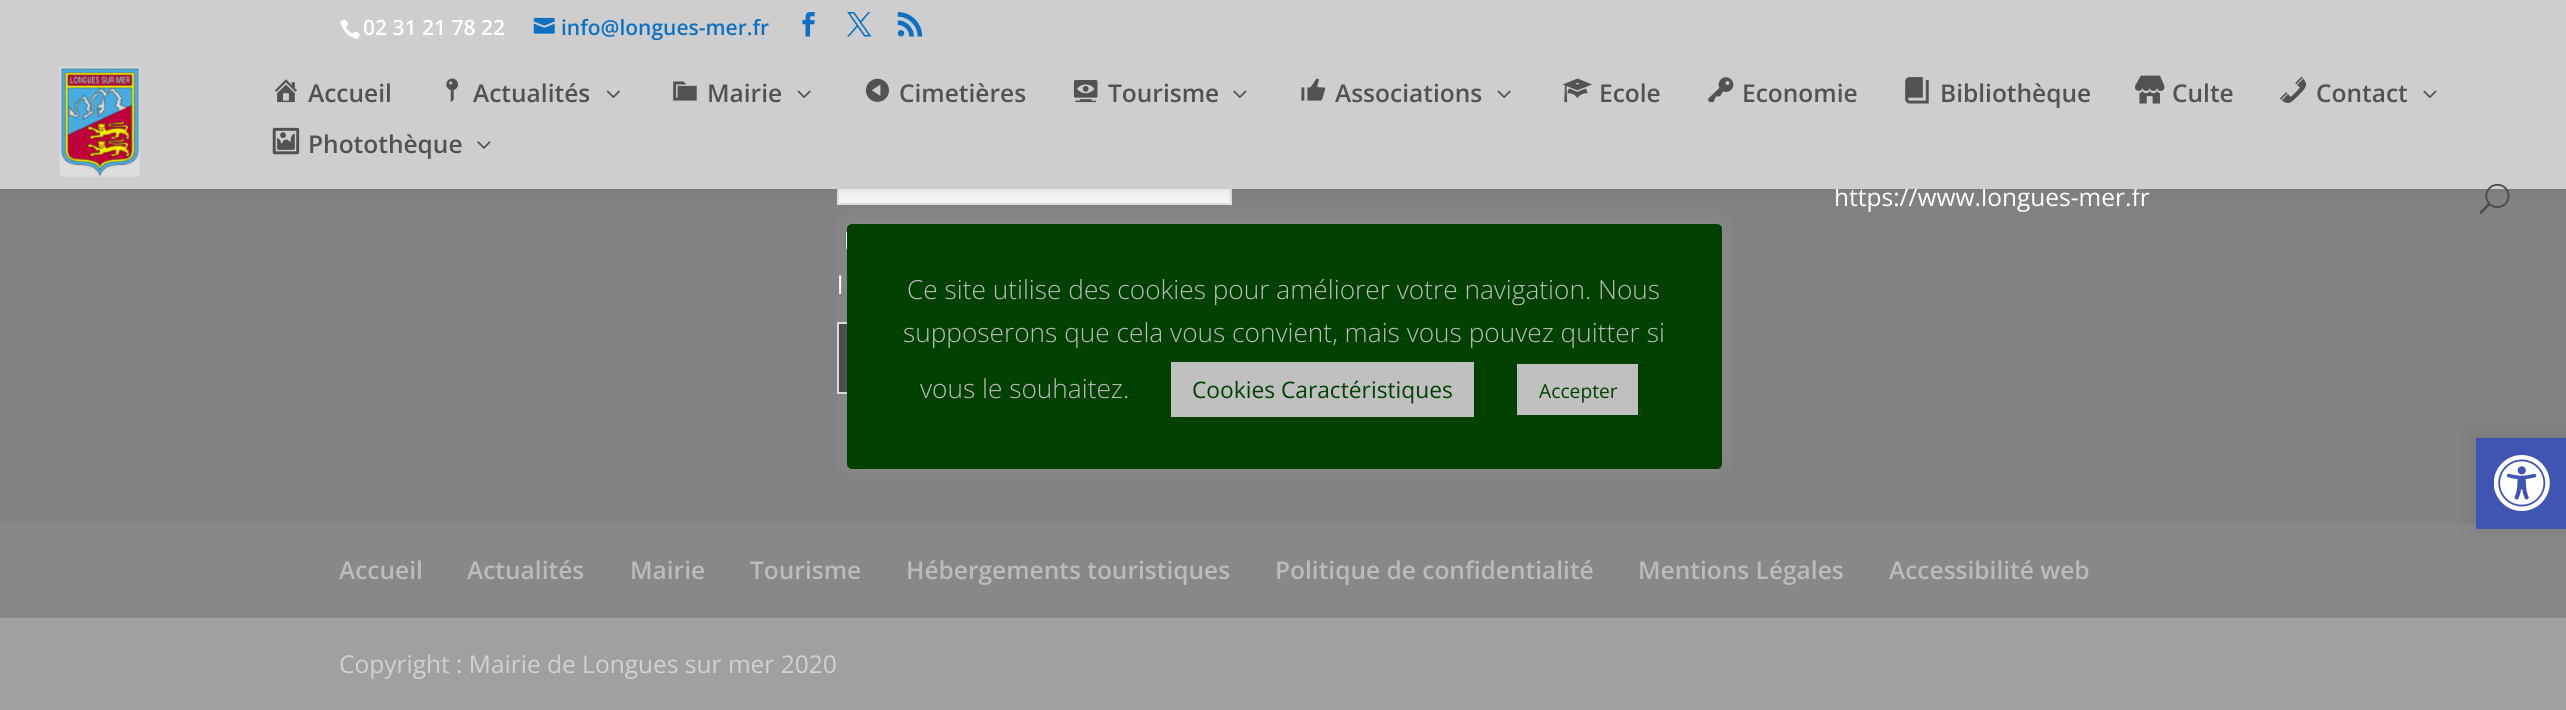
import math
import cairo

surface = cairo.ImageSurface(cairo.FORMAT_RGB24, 2566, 710)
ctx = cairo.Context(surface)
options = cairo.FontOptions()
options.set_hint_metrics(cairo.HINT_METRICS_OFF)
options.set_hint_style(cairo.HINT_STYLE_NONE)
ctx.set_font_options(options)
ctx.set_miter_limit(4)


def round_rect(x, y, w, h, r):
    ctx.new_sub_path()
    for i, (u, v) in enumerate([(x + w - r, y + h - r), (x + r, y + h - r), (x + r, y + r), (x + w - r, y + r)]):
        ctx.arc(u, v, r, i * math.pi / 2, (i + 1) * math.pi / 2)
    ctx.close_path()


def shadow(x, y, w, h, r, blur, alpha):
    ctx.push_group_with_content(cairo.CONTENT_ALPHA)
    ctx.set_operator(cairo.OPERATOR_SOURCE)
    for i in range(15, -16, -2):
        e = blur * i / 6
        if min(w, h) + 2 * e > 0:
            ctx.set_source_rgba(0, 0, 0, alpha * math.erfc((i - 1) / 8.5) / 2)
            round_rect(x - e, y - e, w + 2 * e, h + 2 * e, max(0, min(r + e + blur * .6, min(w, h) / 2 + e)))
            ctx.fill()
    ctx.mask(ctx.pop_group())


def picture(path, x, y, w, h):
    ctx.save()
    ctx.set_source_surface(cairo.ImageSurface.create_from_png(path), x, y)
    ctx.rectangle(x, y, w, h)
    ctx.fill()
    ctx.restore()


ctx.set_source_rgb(0.51, 0.51, 0.51)
ctx.paint()
ctx.set_source_rgb(0.957, 0.957, 0.957)
ctx.rectangle(839, 189, 391, 14)
ctx.fill()
ctx.rectangle(838, 134, 393, 70)
ctx.set_source_rgb(0.867, 0.867, 0.867)
ctx.stroke()
ctx.set_source_rgb(0, 0, 0)
shadow(0, 54, 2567, 135, 0, 6, 0.1)
ctx.select_font_face("Open Sans")
ctx.set_font_size(24.5)
ctx.set_source_rgb(1, 1, 1)
ctx.move_to(1834, 206)
ctx.show_text("https://www.longues-mer.fr")
ctx.set_source_rgb(0.808, 0.808, 0.808)
ctx.rectangle(0, 0, 2566, 189)
ctx.fill()
picture("img1.png", 340, 19, 20, 20)
ctx.select_font_face("Open Sans SemiBold")
ctx.set_font_size(21)
ctx.set_source_rgb(1, 1, 1)
ctx.move_to(363, 35)
ctx.show_text("02 31 21 78 22")
picture("img2.png", 533, 17, 22, 17)
ctx.set_source_rgb(0.047, 0.443, 0.765)
ctx.move_to(561, 35)
ctx.show_text("info@longues-mer.fr")
picture("img3.png", 802, 12, 13, 25)
picture("img4.png", 847, 12, 25, 25)
picture("img5.png", 897, 12, 26, 25)
picture("img6.png", 59, 66, 81, 111)
picture("img7.png", 275, 79, 22, 24)
ctx.set_font_size(24.5)
ctx.set_source_rgb(0.322, 0.322, 0.322)
ctx.move_to(308, 102)
ctx.show_text("Accueil")
picture("img8.png", 446, 78, 12, 24)
ctx.move_to(473, 102)
ctx.show_text("Actualités")
picture("img9.png", 606, 90, 14, 8)
picture("img10.png", 673, 81, 24, 20)
ctx.move_to(707, 102)
ctx.show_text("Mairie")
picture("img11.png", 797, 90, 14, 8)
picture("img12.png", 865, 78, 24, 24)
ctx.move_to(899, 102)
ctx.show_text("Cimetières")
picture("img13.png", 1073, 80, 25, 23)
ctx.move_to(1108, 102)
ctx.show_text("Tourisme")
picture("img14.png", 1233, 90, 14, 8)
picture("img15.png", 1301, 78, 25, 23)
ctx.move_to(1335, 102)
ctx.show_text("Associations")
picture("img11.png", 1497, 90, 14, 8)
picture("img16.png", 1563, 78, 29, 25)
ctx.move_to(1599, 102)
ctx.show_text("Ecole")
picture("img17.png", 1707, 77, 27, 26)
ctx.move_to(1742, 102)
ctx.show_text("Economie")
picture("img18.png", 1905, 77, 24, 27)
ctx.move_to(1940, 102)
ctx.show_text("Bibliothèque")
picture("img19.png", 2135, 75, 30, 29)
ctx.move_to(2172, 102)
ctx.show_text("Culte")
picture("img20.png", 2280, 77, 26, 26)
ctx.move_to(2316, 102)
ctx.show_text("Contact")
picture("img14.png", 2423, 90, 14, 8)
picture("img21.png", 272, 127, 28, 28)
ctx.move_to(308, 153)
ctx.show_text("Photothèque")
picture("img22.png", 477, 141, 14, 8)
picture("img23.png", 2479, 183, 31, 31)
ctx.set_source_rgb(1, 1, 1)
round_rect(845, 230, 20, 21, 3)
ctx.fill_preserve()
ctx.set_source_rgb(0.463, 0.463, 0.463)
ctx.stroke()
ctx.select_font_face("Open Sans")
ctx.set_source_rgb(1, 1, 1)
ctx.move_to(837, 294)
ctx.show_text("l")
ctx.set_source_rgb(0.267, 0.267, 0.267)
ctx.rectangle(839, 324, 8, 68)
ctx.fill()
ctx.rectangle(838, 323, 393, 70)
ctx.set_source_rgb(0.867, 0.867, 0.867)
ctx.stroke()
ctx.set_source_rgb(0.533, 0.533, 0.533)
ctx.rectangle(0, 523, 2566, 95)
ctx.fill()
ctx.select_font_face("Open Sans SemiBold")
ctx.set_source_rgb(0.733, 0.733, 0.733)
ctx.move_to(339, 579)
ctx.show_text("Accueil")
ctx.move_to(467, 579)
ctx.show_text("Actualités")
ctx.move_to(630, 579)
ctx.show_text("Mairie")
ctx.move_to(750, 579)
ctx.show_text("Tourisme")
ctx.move_to(906, 579)
ctx.show_text("Hébergements touristiques")
ctx.move_to(1275, 579)
ctx.show_text("Politique de confidentialité")
ctx.move_to(1638, 579)
ctx.show_text("Mentions Légales")
ctx.move_to(1889, 579)
ctx.show_text("Accessibilité web")
ctx.set_source_rgb(0.627, 0.627, 0.627)
ctx.rectangle(0, 618, 2566, 92)
ctx.fill()
ctx.select_font_face("Open Sans")
ctx.set_source_rgb(0.82, 0.82, 0.82)
ctx.move_to(339, 673)
ctx.show_text("Copyright : Mairie de Longues sur mer 2020")
ctx.set_source_rgb(0.675, 0.671, 0.671)
shadow(847, 222, 875, 245, 5, 9, 0.3)
ctx.set_source_rgb(0, 0.251, 0)
round_rect(847, 224, 875, 245, 5)
ctx.fill()
ctx.select_font_face("Open Sans Light")
ctx.set_font_size(26.25)
ctx.set_source_rgb(0.733, 0.733, 0.733)
ctx.move_to(907, 299)
ctx.show_text("Ce site utilise des cookies pour améliorer votre navigation. Nous")
ctx.move_to(903, 342)
ctx.show_text("supposerons que cela vous convient, mais vous pouvez quitter si")
ctx.move_to(920, 398)
ctx.show_text("vous le souhaitez.")
ctx.set_source_rgb(0.753, 0.753, 0.753)
ctx.rectangle(1171, 362, 303, 55)
ctx.fill()
ctx.select_font_face("Open Sans")
ctx.set_font_size(22.75)
ctx.set_source_rgb(0, 0.251, 0)
ctx.move_to(1192, 398)
ctx.show_text("Cookies Caractéristiques")
ctx.set_source_rgb(0.753, 0.753, 0.753)
ctx.rectangle(1517, 364, 121, 51)
ctx.fill()
ctx.set_font_size(19.25)
ctx.set_source_rgb(0, 0.251, 0)
ctx.move_to(1539, 398)
ctx.show_text("Accepter")
ctx.set_source_rgb(0, 0, 0)
shadow(2476, 438, 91, 91, 0, 9, 0.1)
ctx.set_source_rgb(0.251, 0.329, 0.698)
ctx.rectangle(2476, 438, 90, 91)
ctx.fill()
picture("img24.png", 2494, 455, 56, 56)
surface.write_to_png("page.png")
